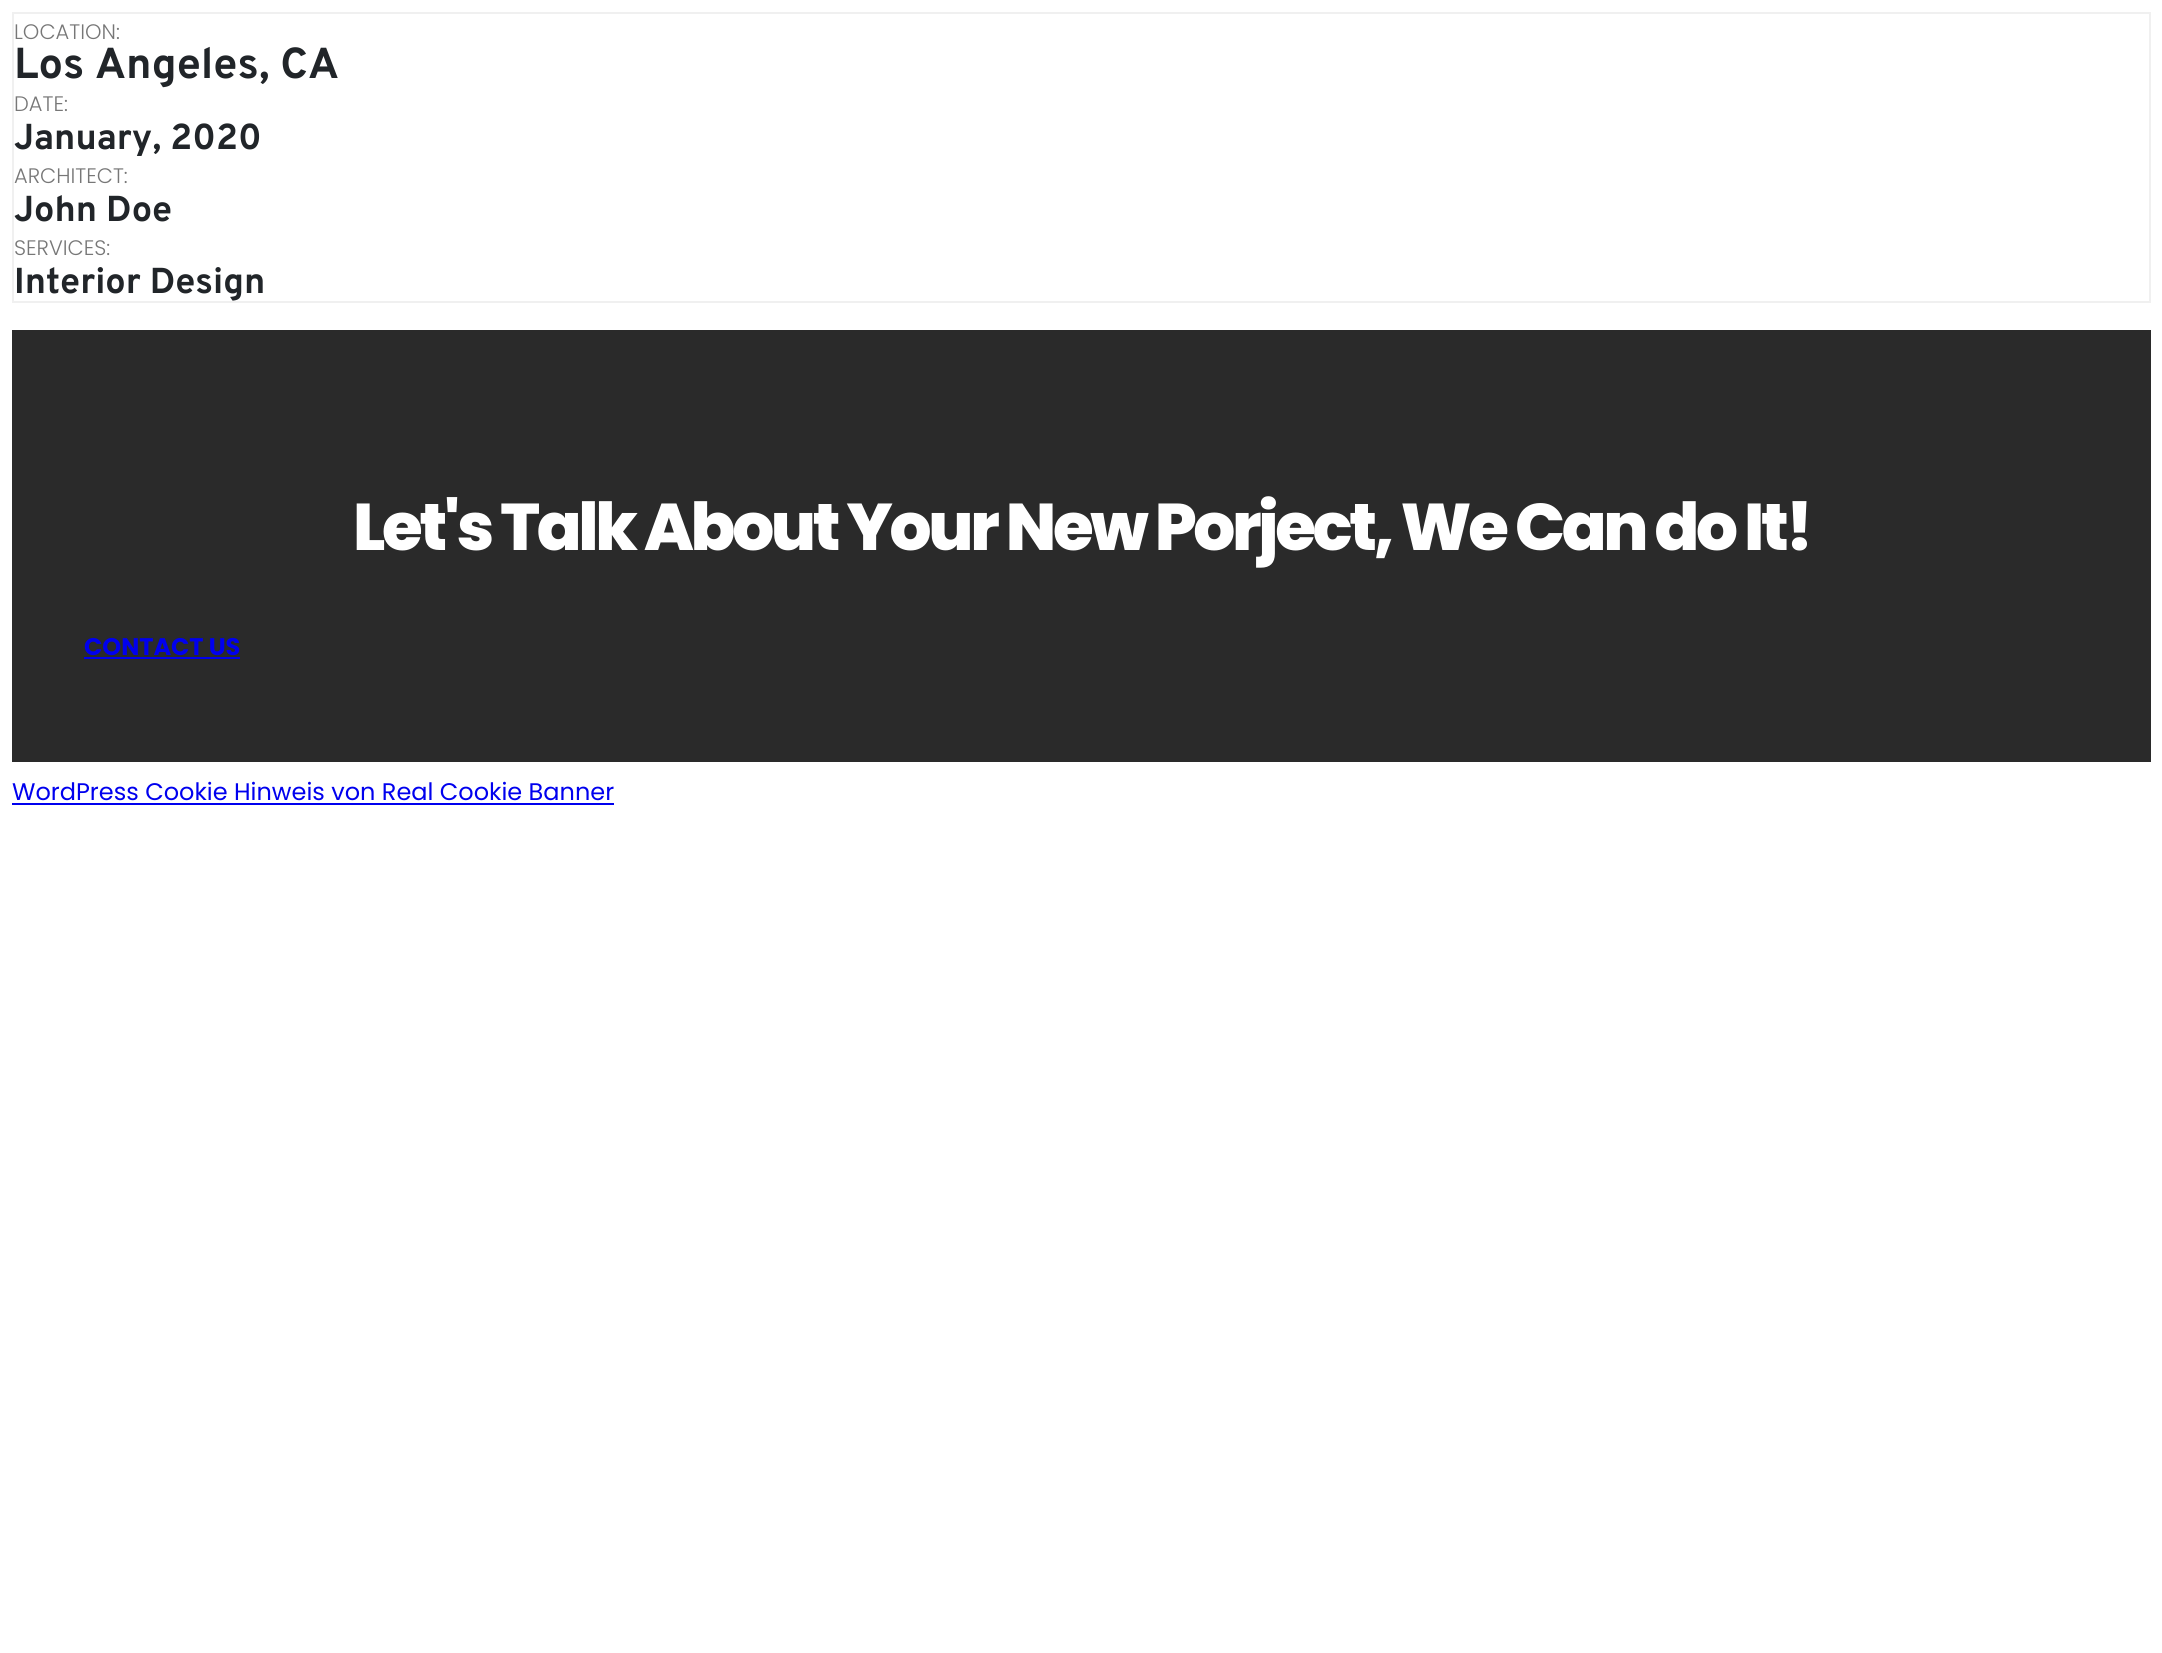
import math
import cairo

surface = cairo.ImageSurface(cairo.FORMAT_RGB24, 2162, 1653)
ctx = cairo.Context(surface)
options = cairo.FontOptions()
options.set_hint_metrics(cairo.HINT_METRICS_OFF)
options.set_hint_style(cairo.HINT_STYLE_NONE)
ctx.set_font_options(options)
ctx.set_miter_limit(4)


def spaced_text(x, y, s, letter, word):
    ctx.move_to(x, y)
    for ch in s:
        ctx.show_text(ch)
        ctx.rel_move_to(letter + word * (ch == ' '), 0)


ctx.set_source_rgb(1, 1, 1)
ctx.paint()
ctx.rectangle(13, 13, 2137, 289)
ctx.set_source_rgb(0.941, 0.941, 0.941)
ctx.stroke()
ctx.select_font_face("Poppins Light")
ctx.set_font_size(21)
ctx.set_source_rgb(0.467, 0.467, 0.467)
ctx.move_to(14, 39)
ctx.show_text("LOCATION:")
ctx.select_font_face("Overpass", cairo.FONT_SLANT_NORMAL, cairo.FONT_WEIGHT_BOLD)
ctx.set_font_size(43.25)
ctx.set_source_rgb(0.129, 0.145, 0.161)
ctx.move_to(14, 78)
ctx.show_text("Los Angeles, CA")
ctx.select_font_face("Poppins Light")
ctx.set_font_size(21)
ctx.set_source_rgb(0.467, 0.467, 0.467)
ctx.move_to(14, 111)
ctx.show_text("DATE:")
ctx.select_font_face("Overpass", cairo.FONT_SLANT_NORMAL, cairo.FONT_WEIGHT_BOLD)
ctx.set_font_size(36)
ctx.set_source_rgb(0.129, 0.145, 0.161)
ctx.move_to(14, 149)
ctx.show_text("January, 2020")
ctx.select_font_face("Poppins Light")
ctx.set_font_size(21)
ctx.set_source_rgb(0.467, 0.467, 0.467)
ctx.move_to(14, 183)
ctx.show_text("ARCHITECT:")
ctx.select_font_face("Overpass", cairo.FONT_SLANT_NORMAL, cairo.FONT_WEIGHT_BOLD)
ctx.set_font_size(36)
ctx.set_source_rgb(0.129, 0.145, 0.161)
ctx.move_to(14, 221)
ctx.show_text("John Doe")
ctx.select_font_face("Poppins Light")
ctx.set_font_size(21)
ctx.set_source_rgb(0.467, 0.467, 0.467)
ctx.move_to(14, 255)
ctx.show_text("SERVICES:")
ctx.select_font_face("Overpass", cairo.FONT_SLANT_NORMAL, cairo.FONT_WEIGHT_BOLD)
ctx.set_font_size(36)
ctx.set_source_rgb(0.129, 0.145, 0.161)
ctx.move_to(14, 293)
ctx.show_text("Interior Design")
ctx.set_source_rgb(0.165, 0.165, 0.165)
ctx.rectangle(12, 330, 2139, 432)
ctx.fill()
ctx.select_font_face("Poppins ExtraBold")
ctx.set_font_size(66)
ctx.set_source_rgb(1, 1, 1)
spaced_text(353, 550, "Let's Talk About Your New Porject, We Can do It!", -3.3, 0)
ctx.select_font_face("Poppins", cairo.FONT_SLANT_NORMAL, cairo.FONT_WEIGHT_BOLD)
ctx.set_font_size(24)
ctx.set_source_rgb(0, 0, 0.933)
ctx.move_to(84, 655)
ctx.show_text("CONTACT US")
ctx.rectangle(84, 657, 156, 2)
ctx.fill()
ctx.select_font_face("Poppins")
ctx.move_to(12, 800)
ctx.show_text("WordPress Cookie Hinweis von Real Cookie Banner")
ctx.rectangle(12, 803, 602, 2)
ctx.fill()
surface.write_to_png("page.png")
